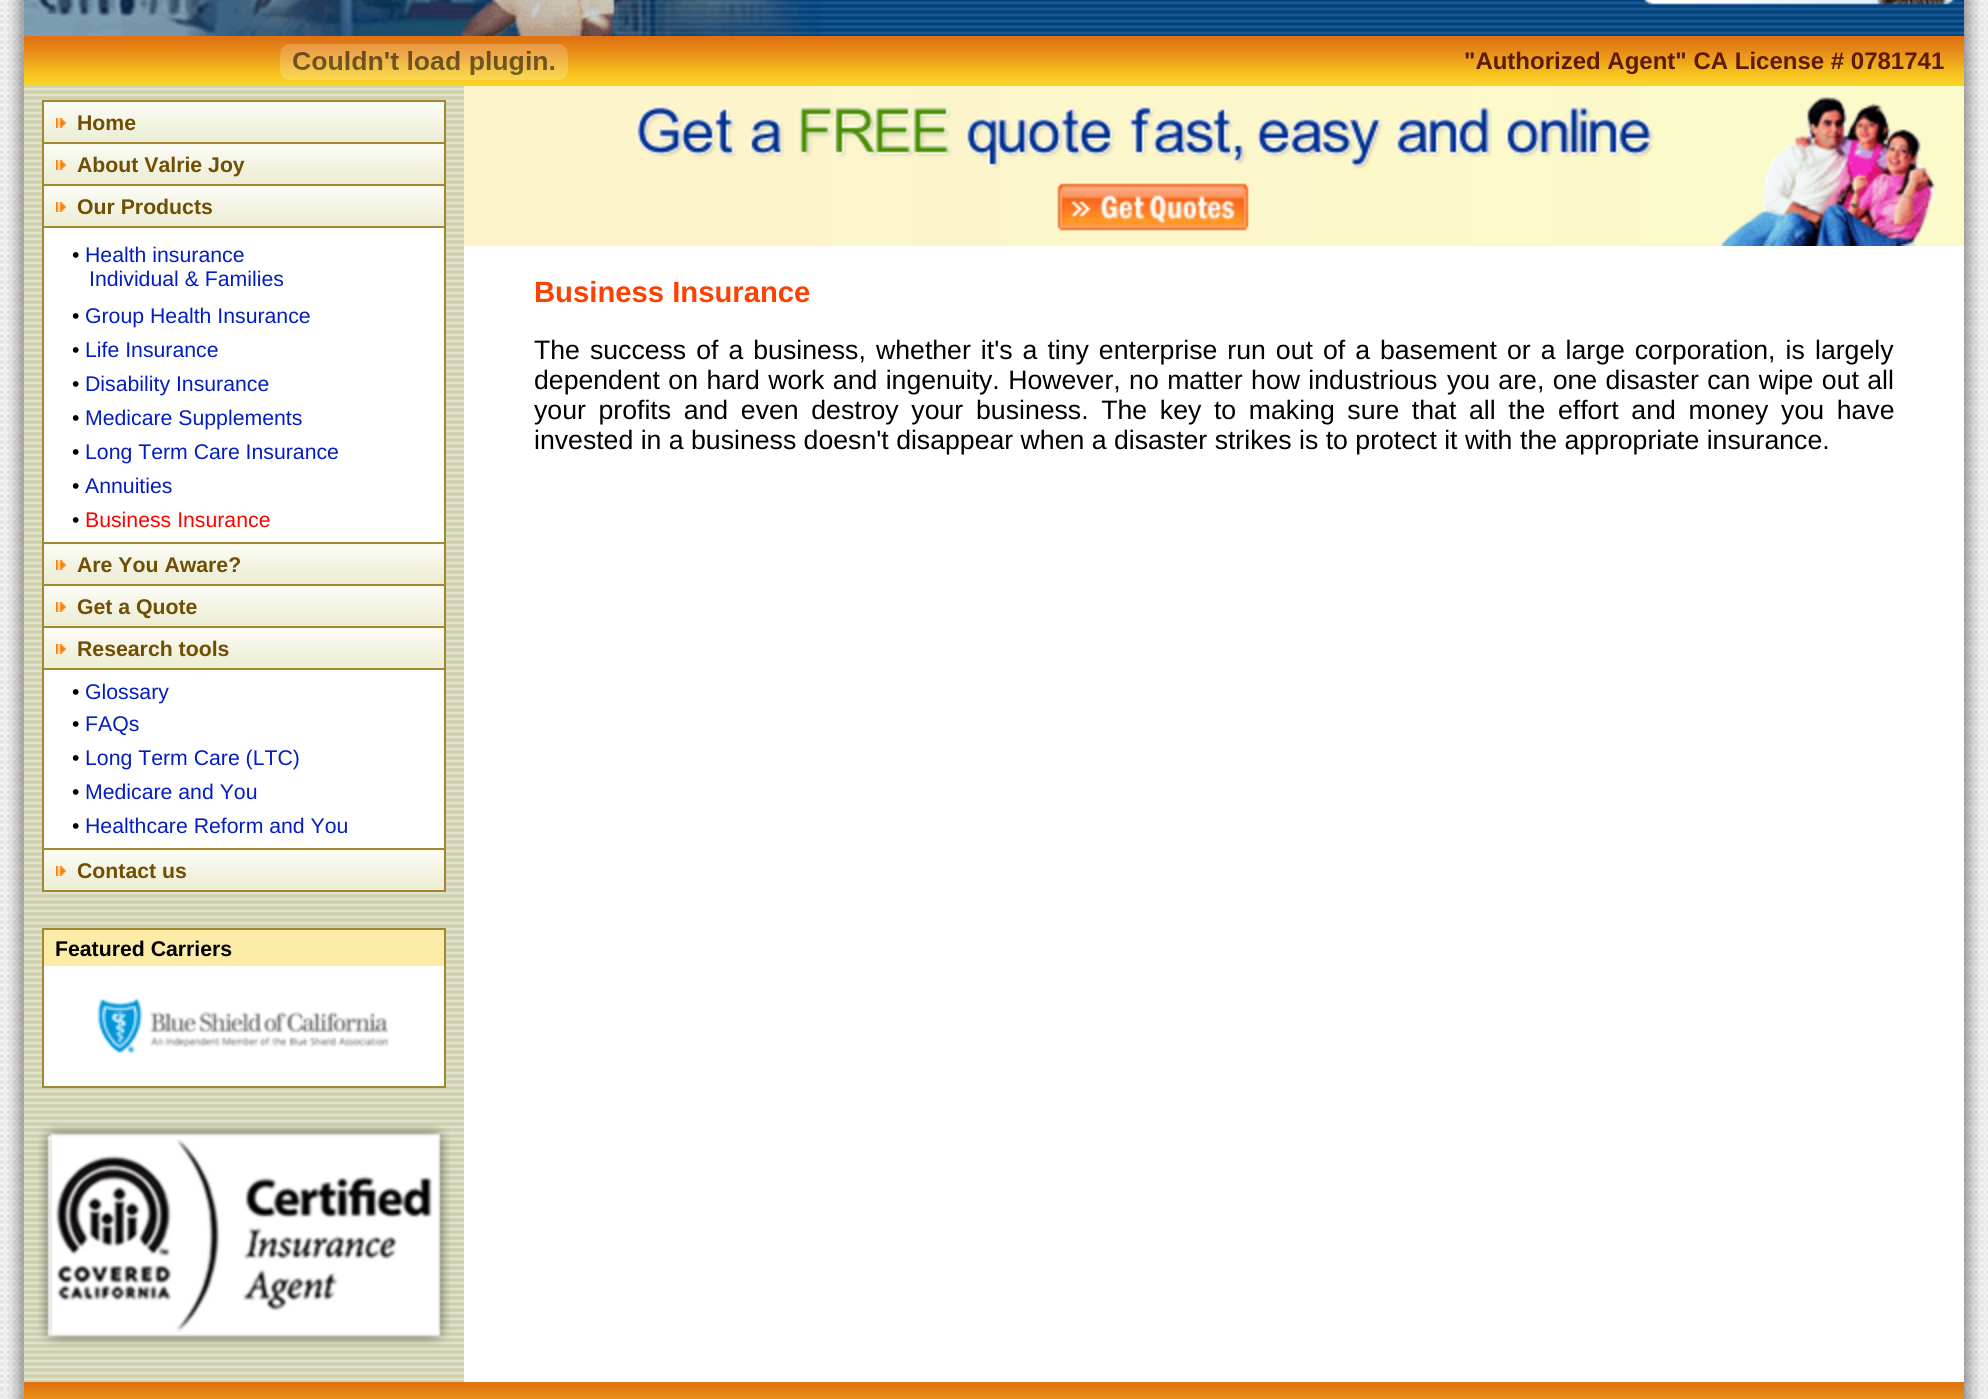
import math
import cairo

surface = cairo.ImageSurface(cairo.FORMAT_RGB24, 1988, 1399)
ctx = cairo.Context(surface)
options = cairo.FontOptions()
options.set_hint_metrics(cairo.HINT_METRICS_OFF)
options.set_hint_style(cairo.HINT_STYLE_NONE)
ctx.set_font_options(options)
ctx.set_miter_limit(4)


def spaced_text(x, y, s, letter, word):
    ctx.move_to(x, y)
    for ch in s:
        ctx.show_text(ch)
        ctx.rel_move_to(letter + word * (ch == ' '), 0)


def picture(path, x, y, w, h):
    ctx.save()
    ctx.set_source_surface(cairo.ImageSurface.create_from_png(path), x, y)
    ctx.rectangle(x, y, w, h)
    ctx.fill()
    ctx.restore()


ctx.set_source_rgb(1, 1, 1)
ctx.paint()
picture("img1.png", 0, 0, 1988, 1399)
picture("img2.png", 8, 0, 16, 1399)
picture("img3.png", 24, 0, 1940, 36)
picture("img4.png", 24, 36, 1940, 50)
picture("img5.png", 280, 44, 288, 36)
ctx.select_font_face("Liberation Sans", cairo.FONT_SLANT_NORMAL, cairo.FONT_WEIGHT_BOLD)
ctx.set_font_size(24)
ctx.set_source_rgb(0.361, 0.106, 0.008)
ctx.move_to(1464, 69)
ctx.show_text("\"Authorized Agent\" CA License # 0781741")
ctx.set_source_rgb(1, 1, 1)
ctx.rectangle(464, 246, 1500, 1136)
ctx.fill()
picture("img6.png", 24, 86, 440, 1296)
picture("img7.png", 44, 102, 400, 40)
ctx.set_source_rgb(0.631, 0.529, 0.184)
ctx.rectangle(42, 100, 404, 2)
ctx.fill()
ctx.rectangle(444, 100, 2, 42)
ctx.fill()
ctx.rectangle(42, 100, 2, 42)
ctx.fill()
picture("img8.png", 56, 118, 10, 10)
ctx.set_font_size(21.25)
ctx.set_source_rgb(0.443, 0.306, 0.004)
ctx.move_to(77, 130)
ctx.show_text("Home")
picture("img7.png", 44, 144, 400, 40)
ctx.set_source_rgb(0.631, 0.529, 0.184)
ctx.rectangle(42, 142, 404, 2)
ctx.fill()
ctx.rectangle(444, 142, 2, 42)
ctx.fill()
ctx.rectangle(42, 142, 2, 42)
ctx.fill()
picture("img8.png", 56, 160, 10, 10)
ctx.set_source_rgb(0.443, 0.306, 0.004)
ctx.move_to(77, 172)
ctx.show_text("About Valrie Joy")
picture("img7.png", 44, 186, 400, 40)
ctx.set_source_rgb(0.631, 0.529, 0.184)
ctx.rectangle(42, 184, 404, 2)
ctx.fill()
ctx.rectangle(444, 184, 2, 42)
ctx.fill()
ctx.rectangle(42, 184, 2, 42)
ctx.fill()
picture("img8.png", 56, 202, 10, 10)
ctx.set_source_rgb(0.443, 0.306, 0.004)
ctx.move_to(77, 214)
ctx.show_text("Our Products")
ctx.set_source_rgb(1, 1, 1)
ctx.rectangle(44, 228, 400, 314)
ctx.fill()
ctx.set_source_rgb(0.631, 0.529, 0.184)
ctx.rectangle(42, 226, 404, 2)
ctx.fill()
ctx.rectangle(444, 226, 2, 316)
ctx.fill()
ctx.rectangle(42, 226, 2, 316)
ctx.fill()
ctx.select_font_face("Liberation Sans")
ctx.set_source_rgb(0, 0, 0)
ctx.move_to(72, 262)
ctx.show_text("•")
ctx.set_source_rgb(0.008, 0.114, 0.757)
ctx.move_to(85, 262)
ctx.show_text("Health insurance")
ctx.move_to(89, 286)
ctx.show_text("Individual & Families")
ctx.set_source_rgb(0, 0, 0)
ctx.move_to(72, 323)
ctx.show_text("•")
ctx.set_source_rgb(0.008, 0.114, 0.757)
ctx.move_to(85, 323)
ctx.show_text("Group Health Insurance")
ctx.set_source_rgb(0, 0, 0)
ctx.move_to(72, 357)
ctx.show_text("•")
ctx.set_source_rgb(0.008, 0.114, 0.757)
ctx.move_to(85, 357)
ctx.show_text("Life Insurance")
ctx.set_source_rgb(0, 0, 0)
ctx.move_to(72, 391)
ctx.show_text("•")
ctx.set_source_rgb(0.008, 0.114, 0.757)
ctx.move_to(85, 391)
ctx.show_text("Disability Insurance")
ctx.set_source_rgb(0, 0, 0)
ctx.move_to(72, 425)
ctx.show_text("•")
ctx.set_source_rgb(0.008, 0.114, 0.757)
ctx.move_to(85, 425)
ctx.show_text("Medicare Supplements")
ctx.set_source_rgb(0, 0, 0)
ctx.move_to(72, 459)
ctx.show_text("•")
ctx.set_source_rgb(0.008, 0.114, 0.757)
ctx.move_to(85, 459)
ctx.show_text("Long Term Care Insurance")
ctx.set_source_rgb(0, 0, 0)
ctx.move_to(72, 493)
ctx.show_text("•")
ctx.set_source_rgb(0.008, 0.114, 0.757)
ctx.move_to(85, 493)
ctx.show_text("Annuities")
ctx.set_source_rgb(0, 0, 0)
ctx.move_to(72, 527)
ctx.show_text("•")
ctx.set_source_rgb(1, 0, 0)
ctx.move_to(85, 527)
ctx.show_text("Business Insurance")
picture("img7.png", 44, 544, 400, 40)
ctx.set_source_rgb(0.631, 0.529, 0.184)
ctx.rectangle(42, 542, 404, 2)
ctx.fill()
ctx.rectangle(444, 542, 2, 42)
ctx.fill()
ctx.rectangle(42, 542, 2, 42)
ctx.fill()
picture("img8.png", 56, 560, 10, 10)
ctx.select_font_face("Liberation Sans", cairo.FONT_SLANT_NORMAL, cairo.FONT_WEIGHT_BOLD)
ctx.set_source_rgb(0.443, 0.306, 0.004)
ctx.move_to(77, 572)
ctx.show_text("Are You Aware?")
picture("img7.png", 44, 586, 400, 40)
ctx.set_source_rgb(0.631, 0.529, 0.184)
ctx.rectangle(42, 584, 404, 2)
ctx.fill()
ctx.rectangle(444, 584, 2, 42)
ctx.fill()
ctx.rectangle(42, 584, 2, 42)
ctx.fill()
picture("img8.png", 56, 602, 10, 10)
ctx.set_source_rgb(0.443, 0.306, 0.004)
ctx.move_to(77, 614)
ctx.show_text("Get a Quote")
picture("img7.png", 44, 628, 400, 40)
ctx.set_source_rgb(0.631, 0.529, 0.184)
ctx.rectangle(42, 626, 404, 2)
ctx.fill()
ctx.rectangle(444, 626, 2, 42)
ctx.fill()
ctx.rectangle(42, 626, 2, 42)
ctx.fill()
picture("img8.png", 56, 644, 10, 10)
ctx.set_source_rgb(0.443, 0.306, 0.004)
ctx.move_to(77, 656)
ctx.show_text("Research tools")
ctx.set_source_rgb(1, 1, 1)
ctx.rectangle(44, 670, 400, 178)
ctx.fill()
ctx.set_source_rgb(0.631, 0.529, 0.184)
ctx.rectangle(42, 668, 404, 2)
ctx.fill()
ctx.rectangle(444, 668, 2, 180)
ctx.fill()
ctx.rectangle(42, 668, 2, 180)
ctx.fill()
ctx.select_font_face("Liberation Sans")
ctx.set_source_rgb(0, 0, 0)
ctx.move_to(72, 699)
ctx.show_text("•")
ctx.set_source_rgb(0.008, 0.114, 0.757)
ctx.move_to(85, 699)
ctx.show_text("Glossary")
ctx.set_source_rgb(0, 0, 0)
ctx.move_to(72, 731)
ctx.show_text("•")
ctx.set_source_rgb(0.008, 0.114, 0.757)
ctx.move_to(85, 731)
ctx.show_text("FAQs")
ctx.set_source_rgb(0, 0, 0)
ctx.move_to(72, 765)
ctx.show_text("•")
ctx.set_source_rgb(0.008, 0.114, 0.757)
ctx.move_to(85, 765)
ctx.show_text("Long Term Care (LTC)")
ctx.set_source_rgb(0, 0, 0)
ctx.move_to(72, 799)
ctx.show_text("•")
ctx.set_source_rgb(0.008, 0.114, 0.757)
ctx.move_to(85, 799)
ctx.show_text("Medicare and You")
ctx.set_source_rgb(0, 0, 0)
ctx.move_to(72, 833)
ctx.show_text("•")
ctx.set_source_rgb(0.008, 0.114, 0.757)
ctx.move_to(85, 833)
ctx.show_text("Healthcare Reform and You")
picture("img7.png", 44, 850, 400, 40)
ctx.rectangle(43, 849, 402, 42)
ctx.set_source_rgb(0.631, 0.529, 0.184)
ctx.stroke()
picture("img8.png", 56, 866, 10, 10)
ctx.select_font_face("Liberation Sans", cairo.FONT_SLANT_NORMAL, cairo.FONT_WEIGHT_BOLD)
ctx.set_source_rgb(0.443, 0.306, 0.004)
ctx.move_to(77, 878)
ctx.show_text("Contact us")
ctx.set_source_rgb(1, 1, 1)
ctx.rectangle(44, 966, 400, 120)
ctx.fill()
ctx.rectangle(43, 929, 402, 158)
ctx.set_source_rgb(0.631, 0.529, 0.184)
ctx.stroke()
ctx.set_source_rgb(0.992, 0.918, 0.659)
ctx.rectangle(44, 930, 400, 36)
ctx.fill()
ctx.set_source_rgb(0, 0, 0)
ctx.move_to(55, 956)
ctx.show_text("Featured Carriers")
picture("img9.png", 97, 997, 292, 58)
picture("img10.png", 38, 1124, 412, 222)
picture("img11.png", 464, 86, 1500, 160)
ctx.set_font_size(29.25)
ctx.set_source_rgb(0.98, 0.259, 0.008)
ctx.move_to(534, 302)
ctx.show_text("Business Insurance")
ctx.select_font_face("Liberation Sans")
ctx.set_font_size(26.65)
ctx.set_source_rgb(0, 0, 0)
spaced_text(534, 359, "The success of a business,", 0, 2.6)
spaced_text(876, 359, "whether it's a tiny enterprise run out of a basement or a large corporation, is", 0, 2.6)
ctx.move_to(1815, 359)
ctx.show_text("largely")
spaced_text(534, 389, "dependent on hard work and ingenuity. However, no matter how industrious", 0, 1)
spaced_text(1447, 389, "you are, one disaster can wipe out all", 0, 1)
spaced_text(534, 419, "your profits and even destroy your", 0, 5.25)
spaced_text(976, 419, "business. The key to making sure that all the effort and money you have", 0, 5.25)
ctx.move_to(534, 449)
ctx.show_text("invested in a business doesn't disappear when a disaster strikes is to protect it with")
ctx.move_to(1520, 449)
ctx.show_text("the appropriate insurance.")
picture("img12.png", 24, 1382, 686, 17)
picture("img13.png", 710, 1382, 1254, 17)
picture("img14.png", 1964, 0, 16, 1399)
surface.write_to_png("page.png")
